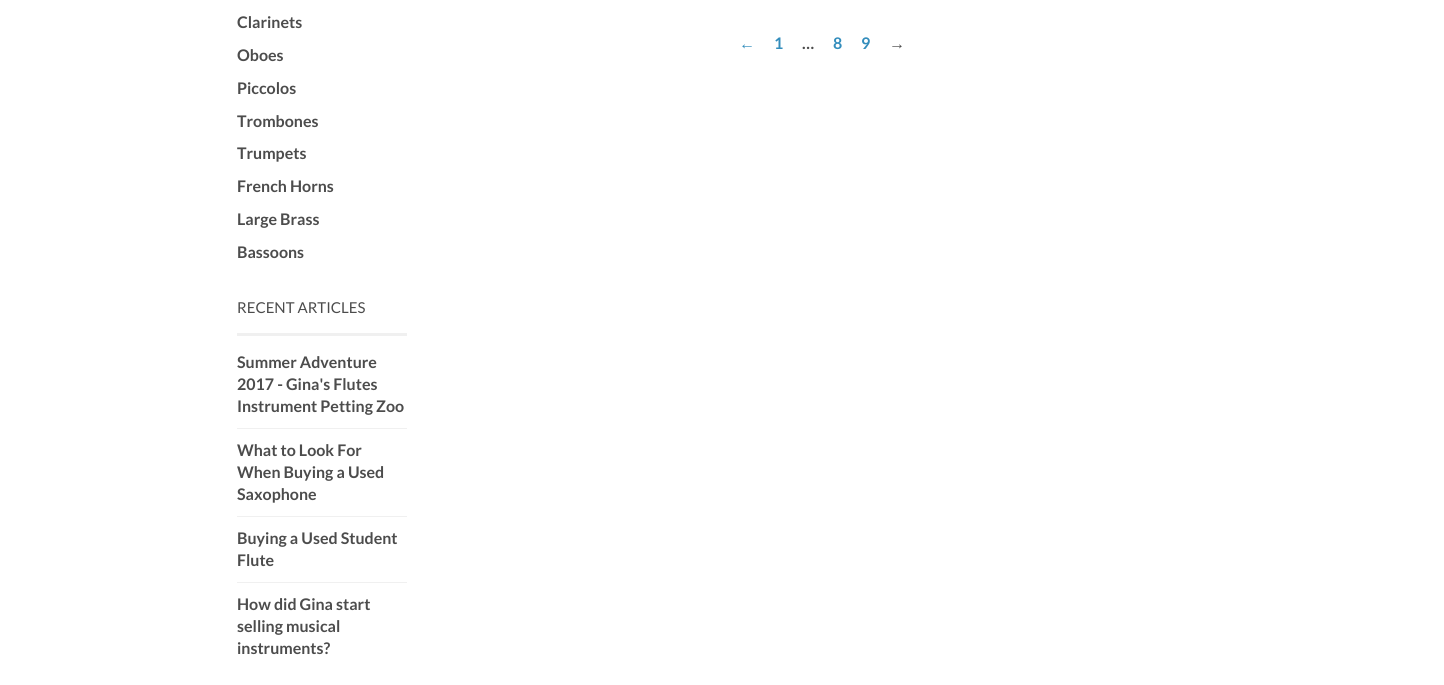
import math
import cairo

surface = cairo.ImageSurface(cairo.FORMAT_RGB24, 1444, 685)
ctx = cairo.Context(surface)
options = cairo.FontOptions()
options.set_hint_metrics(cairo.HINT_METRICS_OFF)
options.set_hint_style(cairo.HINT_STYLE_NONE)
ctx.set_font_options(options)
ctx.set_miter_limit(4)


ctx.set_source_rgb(1, 1, 1)
ctx.paint()
ctx.select_font_face("Lato", cairo.FONT_SLANT_NORMAL, cairo.FONT_WEIGHT_BOLD)
ctx.set_font_size(16)
ctx.set_source_rgb(0.298, 0.298, 0.298)
ctx.move_to(237, 28)
ctx.show_text("Clarinets")
ctx.move_to(237, 61)
ctx.show_text("Oboes")
ctx.move_to(237, 94)
ctx.show_text("Piccolos")
ctx.move_to(237, 127)
ctx.show_text("Trombones")
ctx.move_to(237, 159)
ctx.show_text("Trumpets")
ctx.move_to(237, 192)
ctx.show_text("French Horns")
ctx.move_to(237, 225)
ctx.show_text("Large Brass")
ctx.move_to(237, 258)
ctx.show_text("Bassoons")
ctx.set_source_rgb(0.941, 0.941, 0.941)
ctx.rectangle(237, 333, 170, 3)
ctx.fill()
ctx.select_font_face("Lato")
ctx.set_font_size(15)
ctx.set_source_rgb(0.298, 0.298, 0.298)
ctx.move_to(237, 313)
ctx.show_text("RECENT ARTICLES")
ctx.select_font_face("Lato", cairo.FONT_SLANT_NORMAL, cairo.FONT_WEIGHT_BOLD)
ctx.set_font_size(16)
ctx.move_to(237, 368)
ctx.show_text("Summer Adventure")
ctx.move_to(237, 390)
ctx.show_text("2017 - Gina's Flutes")
ctx.move_to(237, 412)
ctx.show_text("Instrument Petting Zoo")
ctx.set_source_rgb(0.941, 0.941, 0.941)
ctx.rectangle(237, 428, 170, 1)
ctx.fill()
ctx.set_source_rgb(0.298, 0.298, 0.298)
ctx.move_to(237, 456)
ctx.show_text("What to Look For")
ctx.move_to(237, 478)
ctx.show_text("When Buying a Used")
ctx.move_to(237, 500)
ctx.show_text("Saxophone")
ctx.set_source_rgb(0.941, 0.941, 0.941)
ctx.rectangle(237, 516, 170, 1)
ctx.fill()
ctx.set_source_rgb(0.298, 0.298, 0.298)
ctx.move_to(237, 544)
ctx.show_text("Buying a Used Student")
ctx.move_to(237, 566)
ctx.show_text("Flute")
ctx.set_source_rgb(0.941, 0.941, 0.941)
ctx.rectangle(237, 582, 170, 1)
ctx.fill()
ctx.set_source_rgb(0.298, 0.298, 0.298)
ctx.move_to(237, 610)
ctx.show_text("How did Gina start")
ctx.move_to(237, 632)
ctx.show_text("selling musical")
ctx.move_to(237, 654)
ctx.show_text("instruments?")
ctx.select_font_face("Liberation Sans", cairo.FONT_SLANT_NORMAL, cairo.FONT_WEIGHT_BOLD)
ctx.set_source_rgb(0.2, 0.553, 0.737)
ctx.move_to(739, 49)
ctx.show_text("←")
ctx.select_font_face("Lato", cairo.FONT_SLANT_NORMAL, cairo.FONT_WEIGHT_BOLD)
ctx.move_to(774, 49)
ctx.show_text("1")
ctx.set_source_rgb(0.298, 0.298, 0.298)
ctx.move_to(802, 49)
ctx.show_text("…")
ctx.set_source_rgb(0.2, 0.553, 0.737)
ctx.move_to(833, 49)
ctx.show_text("8")
ctx.move_to(861, 49)
ctx.show_text("9")
ctx.select_font_face("Liberation Sans", cairo.FONT_SLANT_NORMAL, cairo.FONT_WEIGHT_BOLD)
ctx.set_source_rgb(0.298, 0.298, 0.298)
ctx.move_to(889, 49)
ctx.show_text("→")
surface.write_to_png("page.png")
